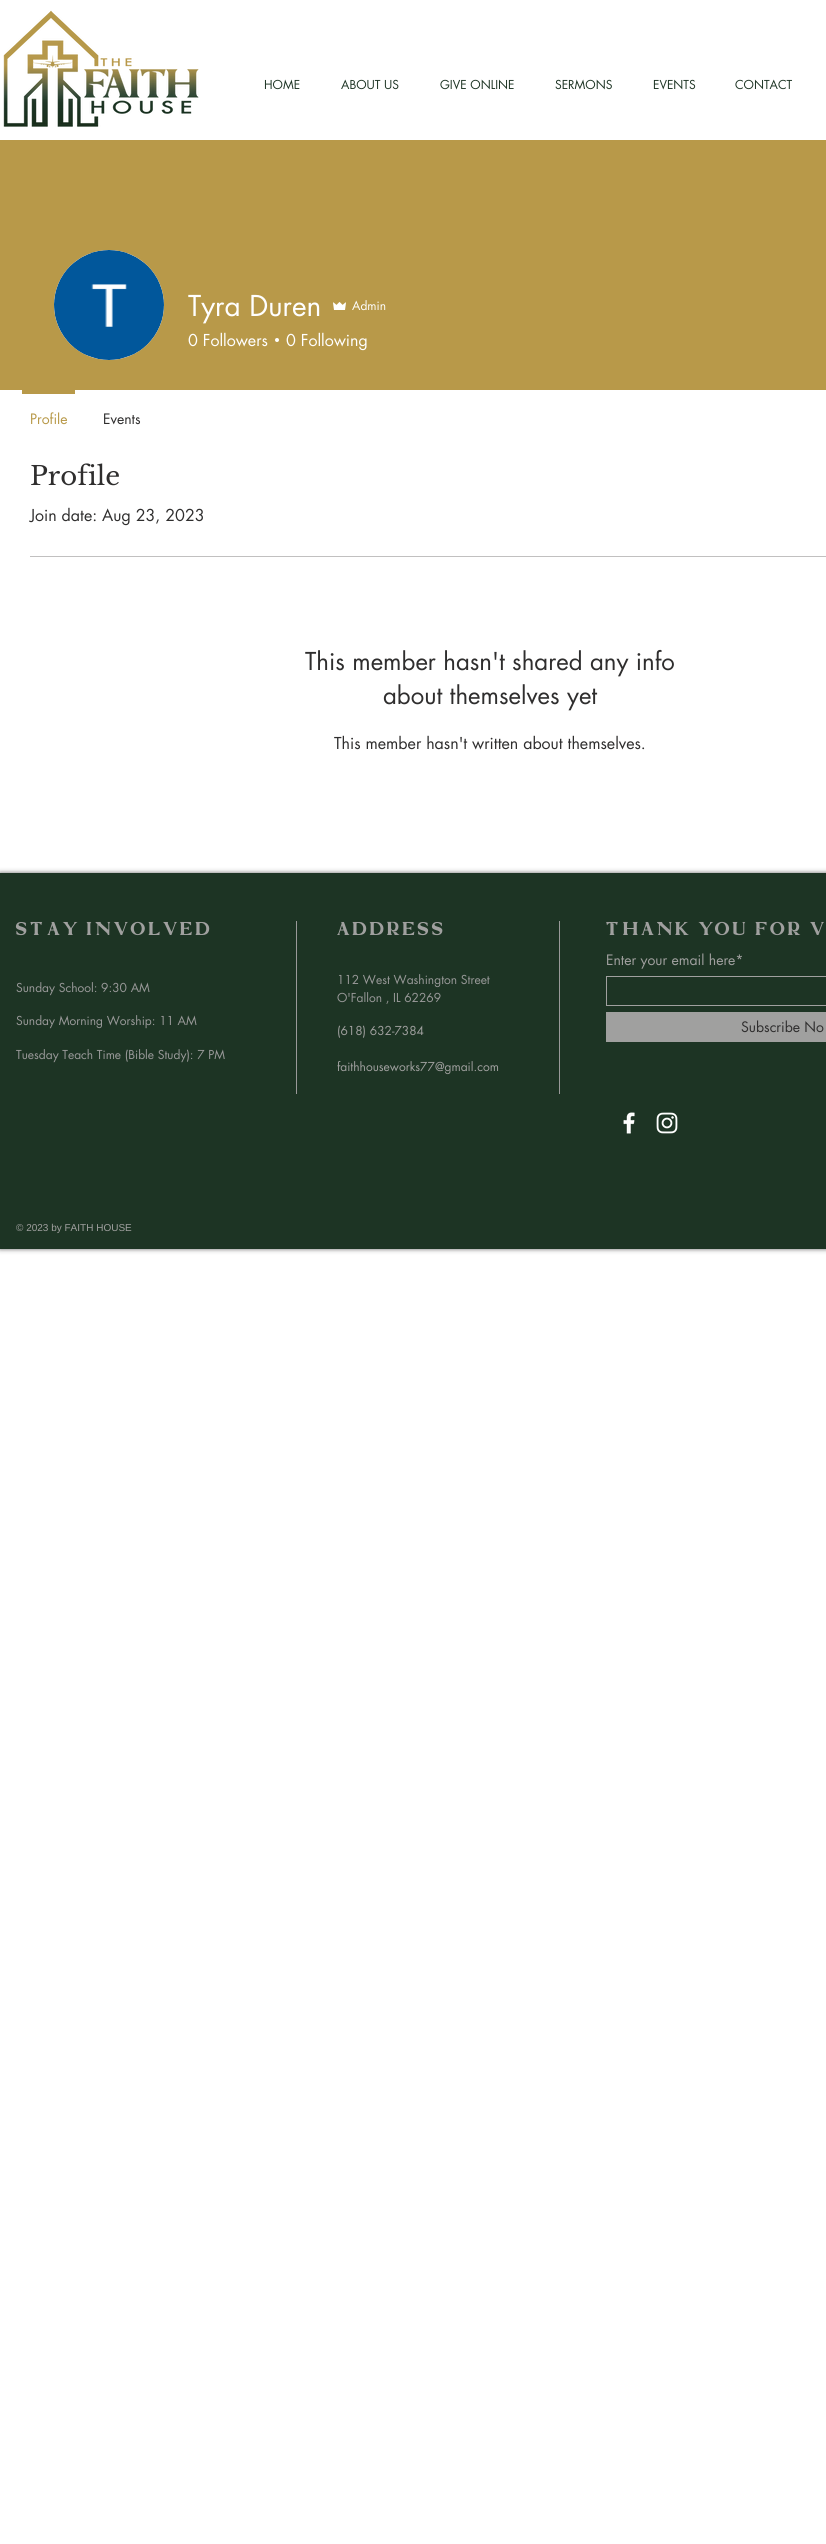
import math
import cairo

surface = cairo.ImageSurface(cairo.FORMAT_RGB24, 826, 2544)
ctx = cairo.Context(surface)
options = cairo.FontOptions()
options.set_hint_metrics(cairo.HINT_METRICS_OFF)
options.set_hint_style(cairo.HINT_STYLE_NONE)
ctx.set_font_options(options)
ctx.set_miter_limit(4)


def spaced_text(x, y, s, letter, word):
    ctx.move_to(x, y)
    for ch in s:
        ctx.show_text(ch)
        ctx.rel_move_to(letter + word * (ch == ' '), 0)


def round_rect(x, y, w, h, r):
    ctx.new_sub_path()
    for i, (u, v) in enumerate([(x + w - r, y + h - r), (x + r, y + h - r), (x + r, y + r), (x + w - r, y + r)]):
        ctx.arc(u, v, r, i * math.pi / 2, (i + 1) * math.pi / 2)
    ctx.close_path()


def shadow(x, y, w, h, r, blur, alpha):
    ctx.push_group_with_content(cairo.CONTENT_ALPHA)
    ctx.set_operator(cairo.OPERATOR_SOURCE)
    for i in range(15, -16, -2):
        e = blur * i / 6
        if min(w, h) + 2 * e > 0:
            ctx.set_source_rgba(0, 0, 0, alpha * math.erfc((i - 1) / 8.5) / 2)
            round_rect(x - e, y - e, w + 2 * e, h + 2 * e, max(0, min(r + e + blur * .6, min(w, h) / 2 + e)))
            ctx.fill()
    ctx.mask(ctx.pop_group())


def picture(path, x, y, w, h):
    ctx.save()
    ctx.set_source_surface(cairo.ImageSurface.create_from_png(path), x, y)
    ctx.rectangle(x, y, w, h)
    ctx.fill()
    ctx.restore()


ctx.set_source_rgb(1, 1, 1)
ctx.paint()
picture("img1.png", 3, 10, 196, 117)
ctx.select_font_face("futura")
ctx.set_font_size(12)
ctx.set_source_rgb(0.114, 0.204, 0.141)
ctx.move_to(264, 89)
ctx.show_text("HOME")
ctx.move_to(341, 89)
ctx.show_text("ABOUT US")
ctx.move_to(440, 89)
ctx.show_text("GIVE ONLINE")
ctx.move_to(555, 89)
ctx.show_text("SERMONS")
ctx.move_to(653, 89)
ctx.show_text("EVENTS")
ctx.move_to(735, 89)
ctx.show_text("CONTACT")
ctx.set_source_rgb(0.722, 0.6, 0.286)
ctx.rectangle(0, 140, 826, 250)
ctx.fill()
ctx.set_source_rgb(0.847, 0.847, 0.847)
ctx.arc(109, 305, 55, 0, 2 * math.pi)
ctx.fill()
picture("img2.png", 54, 250, 110, 110)
ctx.set_font_size(28)
ctx.set_source_rgb(1, 1, 1)
ctx.move_to(188, 316)
ctx.show_text("Tyra Duren")
picture("img3.png", 333, 302, 13, 8)
ctx.set_font_size(12)
ctx.move_to(352, 310)
ctx.show_text("Admin")
ctx.set_font_size(16)
ctx.move_to(188, 346)
ctx.show_text("0 Followers")
ctx.new_path()
ctx.arc(277, 340, 2, 0, 2 * math.pi)
ctx.fill()
ctx.move_to(286, 346)
ctx.show_text("0 Following")
ctx.set_source_rgb(0.722, 0.6, 0.286)
ctx.rectangle(22, 390, 53, 4)
ctx.fill()
ctx.set_font_size(14)
ctx.move_to(30, 424)
ctx.show_text("Profile")
ctx.set_source_rgb(0.184, 0.18, 0.18)
ctx.move_to(103, 424)
ctx.show_text("Events")
ctx.select_font_face("Libre Baskerville")
ctx.set_font_size(26)
ctx.move_to(30, 485)
ctx.show_text("Profile")
ctx.select_font_face("futura")
ctx.set_font_size(16)
ctx.move_to(30, 521)
ctx.show_text("Join date: Aug 23, 2023")
ctx.set_source_rgb(0.757, 0.753, 0.753)
ctx.rectangle(30, 556, 796, 1)
ctx.fill()
ctx.set_font_size(24)
ctx.set_source_rgb(0.184, 0.18, 0.18)
ctx.move_to(305, 670)
ctx.show_text("This member hasn't shared any info")
ctx.move_to(383, 704)
ctx.show_text("about themselves yet")
ctx.set_font_size(16)
ctx.move_to(334, 749)
ctx.show_text("This member hasn't written about themselves.")
ctx.set_source_rgb(0.184, 0.18, 0.18)
shadow(0, 873, 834, 376, 0, 2.5, 0.72)
ctx.set_source_rgb(0.114, 0.204, 0.141)
ctx.rectangle(0, 873, 826, 376)
ctx.fill()
ctx.select_font_face("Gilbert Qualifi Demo")
ctx.set_font_size(18)
ctx.set_source_rgb(0.627, 0.627, 0.624)
spaced_text(16, 935, "STAY INVOLVED", 3.6, 0)
ctx.set_source_rgb(0.6, 0.6, 0.6)
ctx.rectangle(296, 921, 1, 173)
ctx.fill()
ctx.set_source_rgb(0.627, 0.627, 0.624)
spaced_text(337, 935, "ADDRESS", 3.6, 0)
ctx.set_source_rgb(0.6, 0.6, 0.6)
ctx.rectangle(559, 921, 1, 173)
ctx.fill()
ctx.set_source_rgb(0.627, 0.627, 0.624)
spaced_text(606, 935, "THANK YOU FOR V", 3.6, 0)
ctx.select_font_face("futura")
ctx.set_font_size(14)
ctx.move_to(606, 965)
ctx.show_text("Enter your email here*")
ctx.rectangle(606.5, 976.5, 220, 29)
ctx.set_line_width(1)
ctx.stroke()
ctx.rectangle(606, 1012, 220, 30)
ctx.fill()
ctx.set_source_rgb(0.184, 0.18, 0.18)
ctx.move_to(741, 1032)
ctx.show_text("Subscribe No")
ctx.set_font_size(12)
ctx.set_source_rgb(0.6, 0.6, 0.6)
ctx.move_to(16, 992)
ctx.show_text("Sunday School: 9:30 AM")
ctx.move_to(16, 1025)
ctx.show_text("Sunday Morning Worship: 11 AM")
ctx.move_to(16, 1059)
ctx.show_text("Tuesday Teach Time (Bible Study): 7 PM")
ctx.move_to(337, 984)
ctx.show_text("112 West Washington Street")
ctx.move_to(337, 1002)
ctx.show_text("O'Fallon , IL 62269")
ctx.set_source_rgb(0.627, 0.627, 0.624)
ctx.move_to(337, 1035)
ctx.show_text("(618) 632-7384")
ctx.move_to(337, 1071)
ctx.show_text("faithhouseworks77@gmail.com")
picture("img4.png", 623, 1112, 12, 22)
picture("img5.png", 656, 1112, 22, 22)
ctx.select_font_face("Liberation Sans")
ctx.set_font_size(10)
ctx.move_to(16, 1231)
ctx.show_text("© 2023 by FAITH HOUSE")
surface.write_to_png("page.png")
